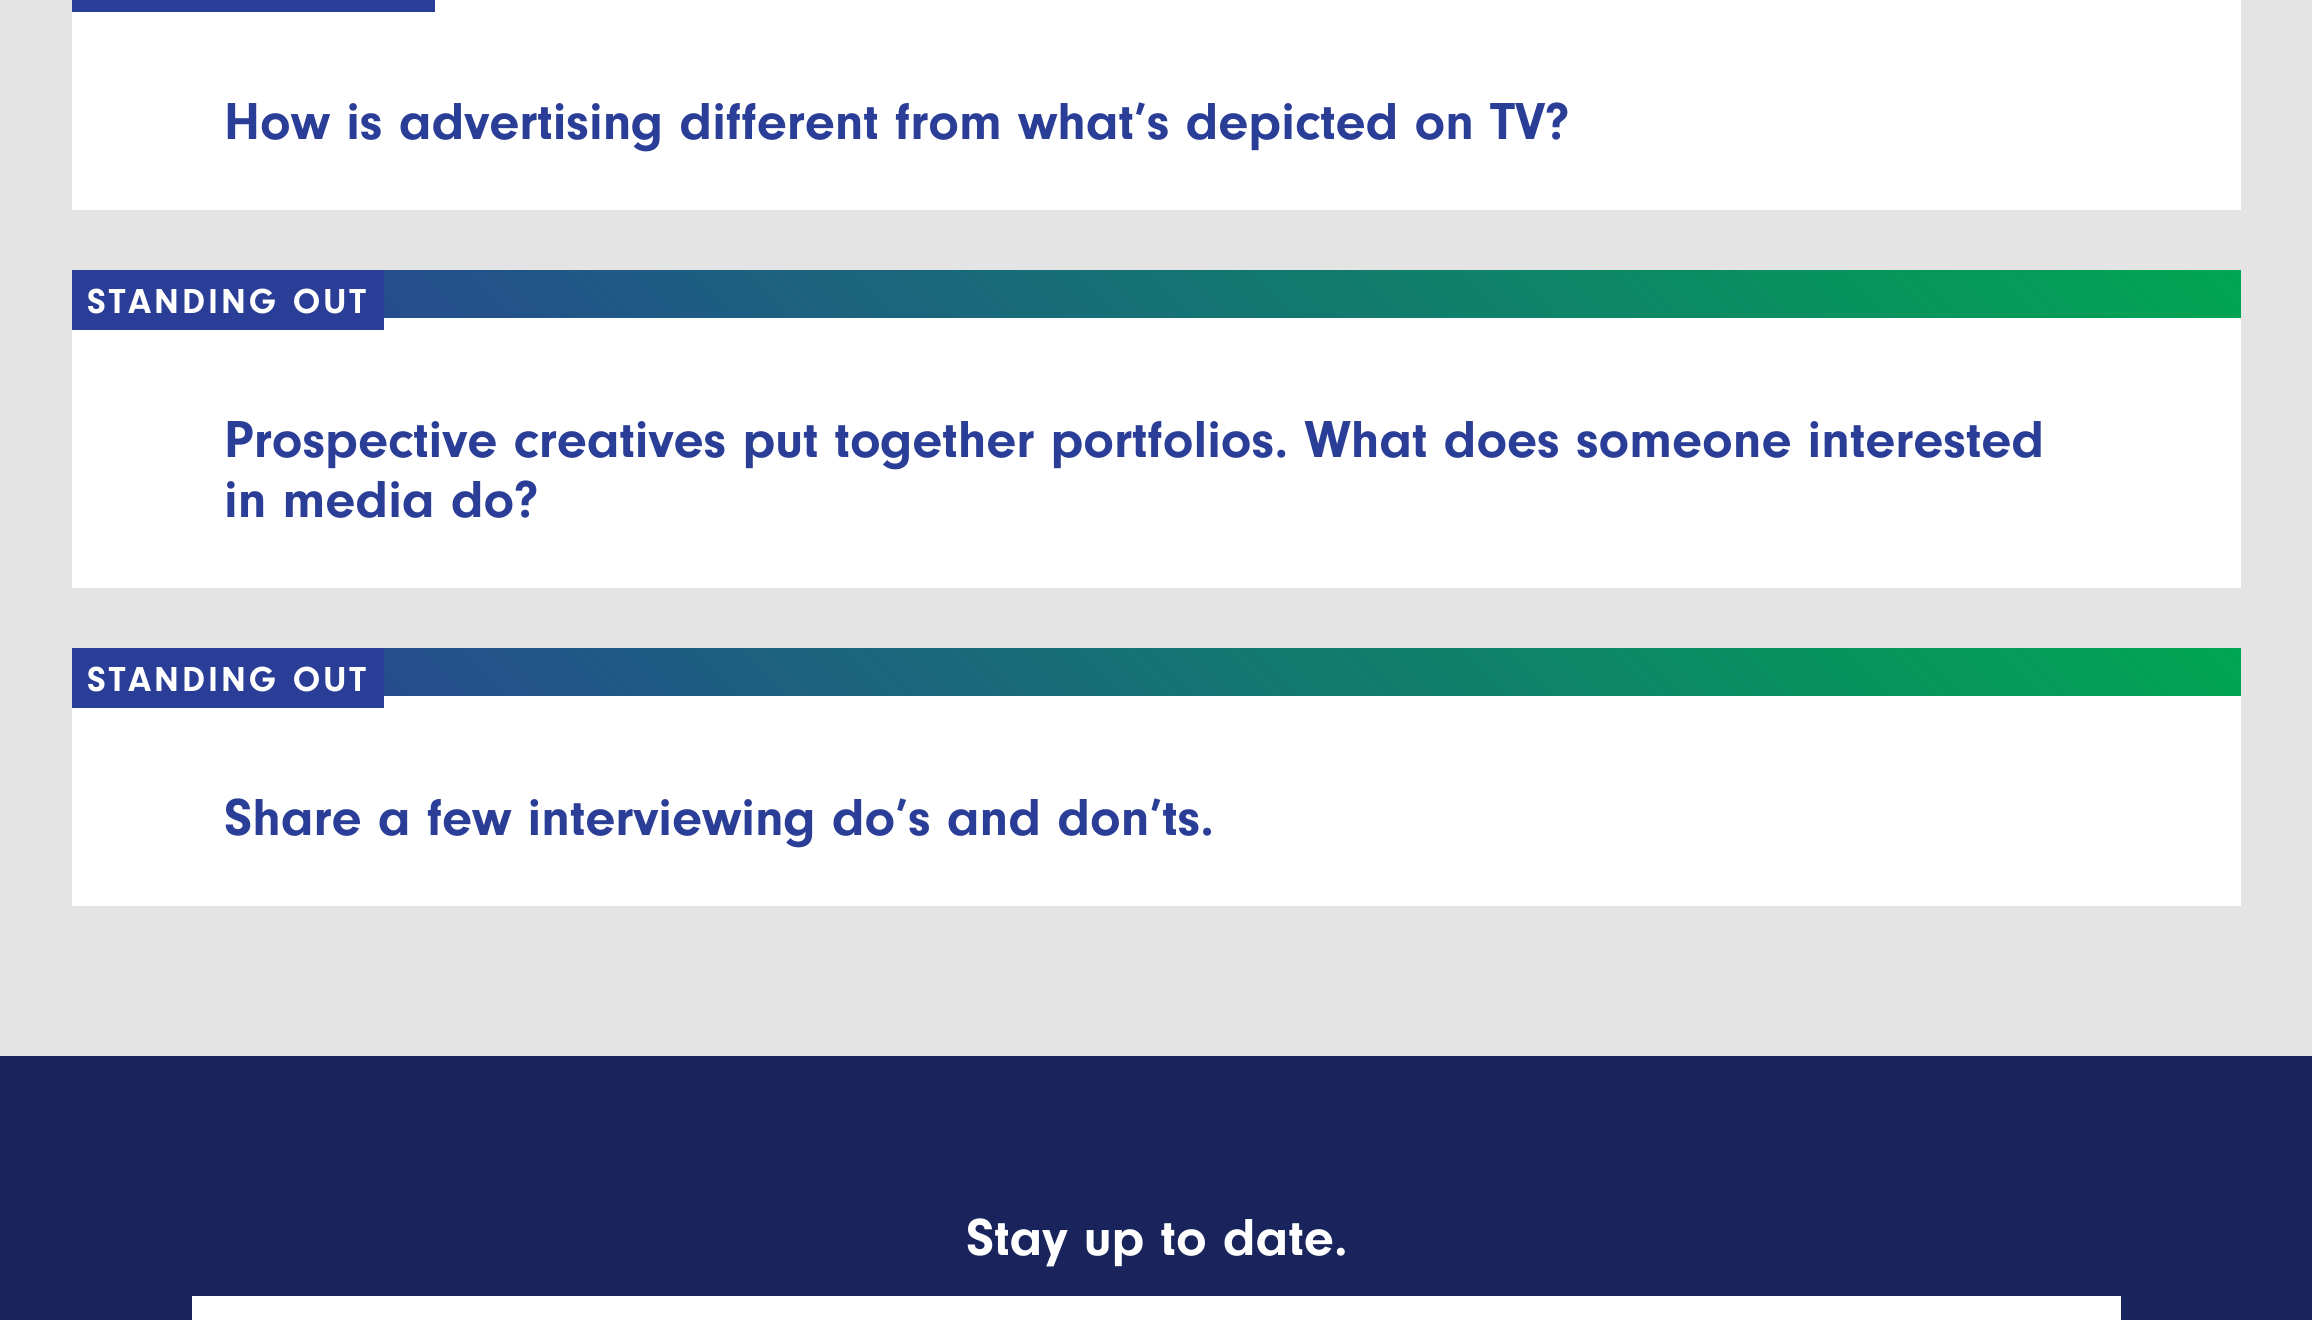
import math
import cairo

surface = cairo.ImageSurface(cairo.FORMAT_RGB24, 2312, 1320)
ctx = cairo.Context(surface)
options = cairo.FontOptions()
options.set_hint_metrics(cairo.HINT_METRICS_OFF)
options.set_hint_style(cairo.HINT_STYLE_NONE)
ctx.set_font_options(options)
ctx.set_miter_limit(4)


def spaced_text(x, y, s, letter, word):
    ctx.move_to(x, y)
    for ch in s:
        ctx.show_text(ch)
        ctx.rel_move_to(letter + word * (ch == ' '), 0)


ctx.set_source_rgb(0.894, 0.894, 0.894)
ctx.paint()
ctx.set_source_rgb(1, 1, 1)
ctx.rectangle(72, 0, 2169, 210)
ctx.fill()
ctx.set_source_rgb(0.169, 0.243, 0.592)
ctx.rectangle(72, 0, 363, 12)
ctx.fill()
ctx.select_font_face("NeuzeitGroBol")
ctx.set_font_size(54)
ctx.move_to(224, 139)
ctx.show_text("How is advertising different from what’s depicted on TV?")
ctx.set_source_rgb(1, 1, 1)
ctx.rectangle(72, 318, 2169, 270)
ctx.fill()
ctx.set_source_rgb(0.169, 0.243, 0.592)
ctx.rectangle(72, 270, 312, 60)
ctx.fill()
ctx.set_font_size(36)
ctx.set_source_rgb(1, 1, 1)
spaced_text(87, 313, "STANDING OUT", 3, 0)
gradient = cairo.LinearGradient(602, 848, 1711, -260)
gradient.add_color_stop_rgba(0, 0.169, 0.243, 0.592, 1)
gradient.add_color_stop_rgba(1, 0, 0.651, 0.318, 1)
ctx.set_source(gradient)
ctx.rectangle(384, 270, 1857, 48)
ctx.fill()
ctx.set_font_size(54)
ctx.set_source_rgb(0.169, 0.243, 0.592)
ctx.move_to(224, 457)
ctx.show_text("Prospective creatives put together portfolios. What does someone interested")
ctx.move_to(224, 517)
ctx.show_text("in media do?")
ctx.set_source_rgb(1, 1, 1)
ctx.rectangle(72, 696, 2169, 210)
ctx.fill()
ctx.set_source_rgb(0.169, 0.243, 0.592)
ctx.rectangle(72, 648, 312, 60)
ctx.fill()
ctx.set_font_size(36)
ctx.set_source_rgb(1, 1, 1)
spaced_text(87, 691, "STANDING OUT", 3, 0)
gradient = cairo.LinearGradient(602, 1226, 1711, 118)
gradient.add_color_stop_rgba(0, 0.169, 0.243, 0.592, 1)
gradient.add_color_stop_rgba(1, 0, 0.651, 0.318, 1)
ctx.set_source(gradient)
ctx.rectangle(384, 648, 1857, 48)
ctx.fill()
ctx.set_font_size(54)
ctx.set_source_rgb(0.169, 0.243, 0.592)
ctx.move_to(224, 835)
ctx.show_text("Share a few interviewing do’s and don’ts.")
ctx.set_source_rgb(0.098, 0.141, 0.361)
ctx.rectangle(0, 1056, 2312, 264)
ctx.fill()
ctx.set_source_rgb(1, 1, 1)
ctx.move_to(966, 1255)
ctx.show_text("Stay up to date.")
ctx.rectangle(192, 1296, 1929, 24)
ctx.fill()
surface.write_to_png("page.png")
